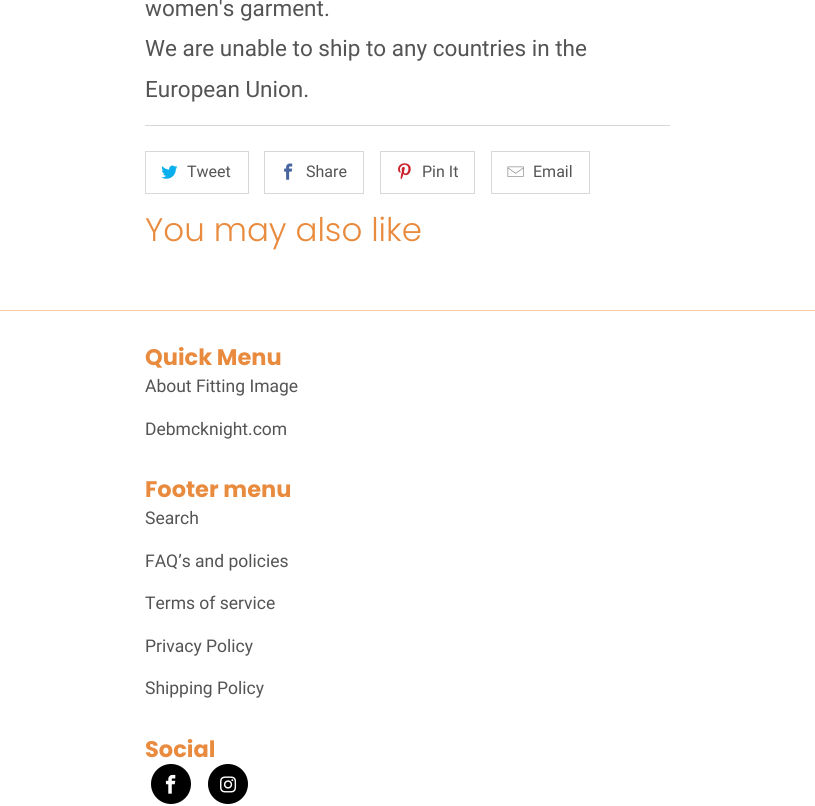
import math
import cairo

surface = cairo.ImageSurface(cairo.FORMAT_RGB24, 815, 806)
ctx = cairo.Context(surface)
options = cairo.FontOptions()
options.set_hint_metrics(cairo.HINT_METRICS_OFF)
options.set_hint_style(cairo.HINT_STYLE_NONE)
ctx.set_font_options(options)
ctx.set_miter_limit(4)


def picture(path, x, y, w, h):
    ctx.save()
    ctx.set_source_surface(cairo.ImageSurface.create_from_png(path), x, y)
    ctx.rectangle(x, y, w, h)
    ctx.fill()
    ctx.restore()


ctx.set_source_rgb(1, 1, 1)
ctx.paint()
ctx.select_font_face("Roboto")
ctx.set_font_size(22.5)
ctx.set_source_rgb(0.329, 0.329, 0.329)
ctx.move_to(145, 16)
ctx.show_text("women's garment.")
ctx.move_to(145, 56)
ctx.show_text("We are unable to ship to any countries in the")
ctx.move_to(145, 97)
ctx.show_text("European Union.")
ctx.set_source_rgb(0.847, 0.847, 0.847)
ctx.rectangle(145, 125, 525, 1)
ctx.fill()
ctx.rectangle(145.5, 151.5, 103, 42)
ctx.set_line_width(1)
ctx.stroke()
picture("img1.png", 161, 165, 17, 14)
ctx.set_font_size(16)
ctx.set_source_rgb(0.329, 0.329, 0.329)
ctx.move_to(187, 177)
ctx.show_text("Tweet")
ctx.rectangle(264.5, 151.5, 99, 42)
ctx.set_source_rgb(0.847, 0.847, 0.847)
ctx.stroke()
picture("img2.png", 284, 163, 9, 17)
ctx.set_source_rgb(0.329, 0.329, 0.329)
ctx.move_to(306, 177)
ctx.show_text("Share")
ctx.rectangle(380.5, 151.5, 94, 42)
ctx.set_source_rgb(0.847, 0.847, 0.847)
ctx.stroke()
picture("img3.png", 398, 163, 13, 17)
ctx.set_source_rgb(0.329, 0.329, 0.329)
ctx.move_to(422, 177)
ctx.show_text("Pin It")
ctx.rectangle(491.5, 151.5, 98, 42)
ctx.set_source_rgb(0.847, 0.847, 0.847)
ctx.stroke()
picture("img4.png", 507, 166, 17, 11)
ctx.set_source_rgb(0.329, 0.329, 0.329)
ctx.move_to(533, 177)
ctx.show_text("Email")
ctx.select_font_face("Poppins Light")
ctx.set_font_size(32.5)
ctx.set_source_rgb(0.914, 0.545, 0.243)
ctx.move_to(145, 241)
ctx.show_text("You may also like")
ctx.set_source_rgb(0.976, 0.8, 0.655)
ctx.rectangle(0, 310, 815, 1)
ctx.fill()
ctx.select_font_face("Poppins", cairo.FONT_SLANT_NORMAL, cairo.FONT_WEIGHT_BOLD)
ctx.set_font_size(22.5)
ctx.set_source_rgb(0.914, 0.545, 0.243)
ctx.move_to(145, 365)
ctx.show_text("Quick Menu")
ctx.select_font_face("Roboto")
ctx.set_font_size(17.5)
ctx.set_source_rgb(0.329, 0.329, 0.329)
ctx.move_to(145, 392)
ctx.show_text("About Fitting Image")
ctx.move_to(145, 435)
ctx.show_text("Debmcknight.com")
ctx.select_font_face("Poppins", cairo.FONT_SLANT_NORMAL, cairo.FONT_WEIGHT_BOLD)
ctx.set_font_size(22.5)
ctx.set_source_rgb(0.914, 0.545, 0.243)
ctx.move_to(145, 497)
ctx.show_text("Footer menu")
ctx.select_font_face("Roboto")
ctx.set_font_size(17.5)
ctx.set_source_rgb(0.329, 0.329, 0.329)
ctx.move_to(145, 524)
ctx.show_text("Search")
ctx.move_to(145, 567)
ctx.show_text("FAQ’s and policies")
ctx.move_to(145, 609)
ctx.show_text("Terms of service")
ctx.move_to(145, 652)
ctx.show_text("Privacy Policy")
ctx.move_to(145, 694)
ctx.show_text("Shipping Policy")
ctx.select_font_face("Poppins", cairo.FONT_SLANT_NORMAL, cairo.FONT_WEIGHT_BOLD)
ctx.set_font_size(22.5)
ctx.set_source_rgb(0.914, 0.545, 0.243)
ctx.move_to(145, 757)
ctx.show_text("Social")
ctx.set_source_rgb(0, 0, 0)
ctx.new_path()
ctx.arc(171, 784, 20, 0, 2 * math.pi)
ctx.fill()
picture("img5.png", 165, 774, 11, 20)
ctx.arc(228, 784, 20, 0, 2 * math.pi)
ctx.fill()
picture("img6.png", 220, 776, 17, 17)
surface.write_to_png("page.png")
